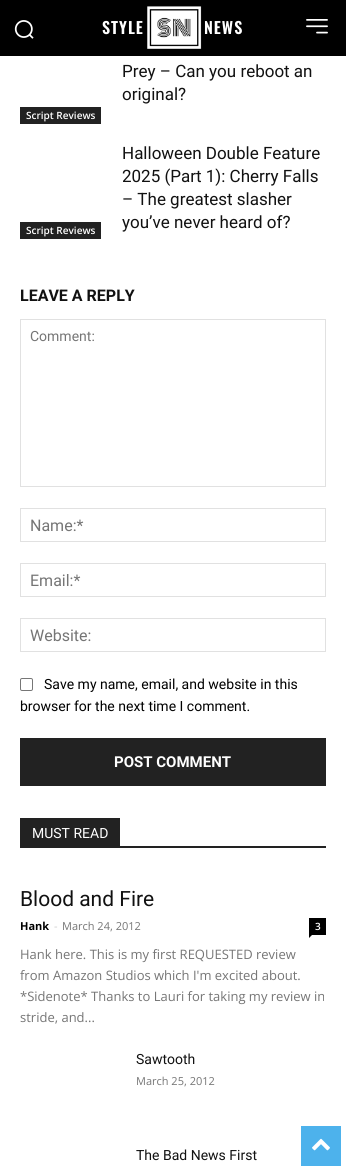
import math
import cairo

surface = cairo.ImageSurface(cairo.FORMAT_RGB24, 346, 1170)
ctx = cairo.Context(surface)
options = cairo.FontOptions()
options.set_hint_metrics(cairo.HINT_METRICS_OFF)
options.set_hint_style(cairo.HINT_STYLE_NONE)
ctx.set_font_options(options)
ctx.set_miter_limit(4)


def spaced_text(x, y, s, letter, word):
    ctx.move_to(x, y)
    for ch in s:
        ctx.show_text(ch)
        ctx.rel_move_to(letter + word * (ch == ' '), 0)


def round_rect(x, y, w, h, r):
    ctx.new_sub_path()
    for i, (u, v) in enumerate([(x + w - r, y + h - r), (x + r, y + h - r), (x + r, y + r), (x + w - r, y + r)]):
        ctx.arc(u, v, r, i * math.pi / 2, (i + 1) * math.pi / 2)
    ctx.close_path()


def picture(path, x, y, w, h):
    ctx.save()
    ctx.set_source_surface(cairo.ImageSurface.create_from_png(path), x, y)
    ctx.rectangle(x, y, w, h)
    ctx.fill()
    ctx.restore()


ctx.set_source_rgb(1, 1, 1)
ctx.paint()
ctx.set_source_rgb(0, 0, 0)
ctx.rectangle(0, 0, 346, 56)
ctx.fill()
picture("img1.png", 14, 20, 20, 19)
ctx.select_font_face("Oswald SemiBold")
ctx.set_font_size(16)
ctx.set_source_rgb(1, 1, 1)
spaced_text(102, 34, "STYLE", 1, 0)
picture("img2.png", 147, 6, 55, 43)
spaced_text(204, 34, "NEWS", 1, 0)
picture("img3.png", 306, 19, 22, 15)
ctx.select_font_face("Roboto")
ctx.set_font_size(17)
ctx.set_source_rgb(0.067, 0.067, 0.067)
ctx.move_to(122, 77)
ctx.show_text("Prey – Can you reboot an")
ctx.move_to(122, 100)
ctx.show_text("original?")
ctx.set_source_rgb(0.133, 0.133, 0.133)
ctx.rectangle(20, 107, 81, 17)
ctx.fill()
ctx.select_font_face("Open Sans SemiBold")
ctx.set_font_size(10)
ctx.set_source_rgb(1, 1, 1)
ctx.move_to(26, 119)
ctx.show_text("Script Reviews")
ctx.set_source_rgb(0.133, 0.133, 0.133)
ctx.rectangle(20, 222, 81, 17)
ctx.fill()
ctx.set_source_rgb(1, 1, 1)
ctx.move_to(26, 234)
ctx.show_text("Script Reviews")
ctx.select_font_face("Roboto")
ctx.set_font_size(17)
ctx.set_source_rgb(0.067, 0.067, 0.067)
ctx.move_to(122, 159)
ctx.show_text("Halloween Double Feature")
ctx.move_to(122, 182)
ctx.show_text("2025 (Part 1): Cherry Falls")
ctx.move_to(122, 205)
ctx.show_text("– The greatest slasher")
ctx.move_to(122, 228)
ctx.show_text("you’ve never heard of?")
ctx.select_font_face("Roboto", cairo.FONT_SLANT_NORMAL, cairo.FONT_WEIGHT_BOLD)
ctx.set_font_size(16)
ctx.move_to(20, 301)
ctx.show_text("LEAVE A REPLY")
ctx.rectangle(20.5, 319.5, 305, 167)
ctx.set_source_rgb(0.882, 0.882, 0.882)
ctx.set_line_width(1)
ctx.stroke()
ctx.select_font_face("Roboto")
ctx.set_font_size(14)
ctx.set_source_rgb(0.459, 0.459, 0.459)
ctx.move_to(30, 341)
ctx.show_text("Comment:")
ctx.rectangle(20.5, 508.5, 305, 33)
ctx.set_source_rgb(0.882, 0.882, 0.882)
ctx.stroke()
ctx.set_font_size(16)
ctx.set_source_rgb(0.459, 0.459, 0.459)
ctx.move_to(30, 531)
ctx.show_text("Name:*")
ctx.rectangle(20.5, 563.5, 305, 33)
ctx.set_source_rgb(0.882, 0.882, 0.882)
ctx.stroke()
ctx.set_source_rgb(0.459, 0.459, 0.459)
ctx.move_to(30, 586)
ctx.show_text("Email:*")
ctx.rectangle(20.5, 618.5, 305, 33)
ctx.set_source_rgb(0.882, 0.882, 0.882)
ctx.stroke()
ctx.set_source_rgb(0.459, 0.459, 0.459)
ctx.move_to(30, 641)
ctx.show_text("Website:")
round_rect(20.5, 678.5, 12, 12, 1.5)
ctx.set_source_rgb(0.463, 0.463, 0.463)
ctx.stroke()
ctx.set_font_size(14)
ctx.set_source_rgb(0, 0, 0)
ctx.move_to(44, 689)
ctx.show_text("Save my name, email, and website in this")
ctx.move_to(20, 711)
ctx.show_text("browser for the next time I comment.")
ctx.set_source_rgb(0.133, 0.133, 0.133)
ctx.rectangle(20, 738, 306, 48)
ctx.fill()
ctx.select_font_face("Roboto", cairo.FONT_SLANT_NORMAL, cairo.FONT_WEIGHT_BOLD)
ctx.set_font_size(15)
ctx.set_source_rgb(1, 1, 1)
ctx.move_to(114, 767)
ctx.show_text("POST COMMENT")
ctx.set_source_rgb(0.133, 0.133, 0.133)
ctx.rectangle(20, 846, 306, 2)
ctx.fill()
ctx.rectangle(20, 818, 100, 28)
ctx.fill()
ctx.select_font_face("Roboto")
ctx.set_font_size(14)
ctx.set_source_rgb(1, 1, 1)
ctx.move_to(32, 838)
ctx.show_text("MUST READ")
ctx.set_font_size(21)
ctx.set_source_rgb(0.067, 0.067, 0.067)
ctx.move_to(20, 906)
ctx.show_text("Blood and Fire")
ctx.select_font_face("Open Sans", cairo.FONT_SLANT_NORMAL, cairo.FONT_WEIGHT_BOLD)
ctx.set_font_size(11)
ctx.set_source_rgb(0, 0, 0)
ctx.move_to(20, 930)
ctx.show_text("Hank")
ctx.select_font_face("Open Sans")
ctx.set_source_rgb(0.8, 0.8, 0.8)
ctx.move_to(54, 930)
ctx.show_text("-")
ctx.set_source_rgb(0.459, 0.459, 0.459)
ctx.move_to(62, 930)
ctx.show_text("March 24, 2012")
ctx.set_source_rgb(0, 0, 0)
ctx.rectangle(309, 918, 17, 17)
ctx.fill()
ctx.select_font_face("Open Sans SemiBold")
ctx.set_font_size(10)
ctx.set_source_rgb(1, 1, 1)
ctx.move_to(315, 930)
ctx.show_text("3")
ctx.set_source_rgb(0, 0, 0)
ctx.new_path()
ctx.move_to(309, 935)
ctx.line_to(312, 935)
ctx.line_to(309, 938)
ctx.close_path()
ctx.fill()
ctx.select_font_face("Open Sans")
ctx.set_font_size(13)
ctx.set_source_rgb(0.459, 0.459, 0.459)
ctx.move_to(20, 959)
ctx.show_text("Hank here. This is my first REQUESTED review")
ctx.move_to(20, 980)
ctx.show_text("from Amazon Studios which I'm excited about.")
ctx.move_to(20, 1001)
ctx.show_text("*Sidenote* Thanks to Lauri for taking my review in")
ctx.move_to(20, 1022)
ctx.show_text("stride, and...")
ctx.select_font_face("Roboto")
ctx.set_font_size(14)
ctx.set_source_rgb(0.067, 0.067, 0.067)
ctx.move_to(136, 1064)
ctx.show_text("Sawtooth")
ctx.select_font_face("Open Sans")
ctx.set_font_size(11)
ctx.set_source_rgb(0.459, 0.459, 0.459)
ctx.move_to(136, 1085)
ctx.show_text("March 25, 2012")
ctx.select_font_face("Roboto")
ctx.set_font_size(14)
ctx.set_source_rgb(0.067, 0.067, 0.067)
ctx.move_to(136, 1160)
ctx.show_text("The Bad News First")
ctx.set_source_rgb(0.302, 0.698, 0.925)
ctx.rectangle(301, 1126, 40, 40)
ctx.fill()
picture("img4.png", 312, 1138, 18, 13)
surface.write_to_png("page.png")
